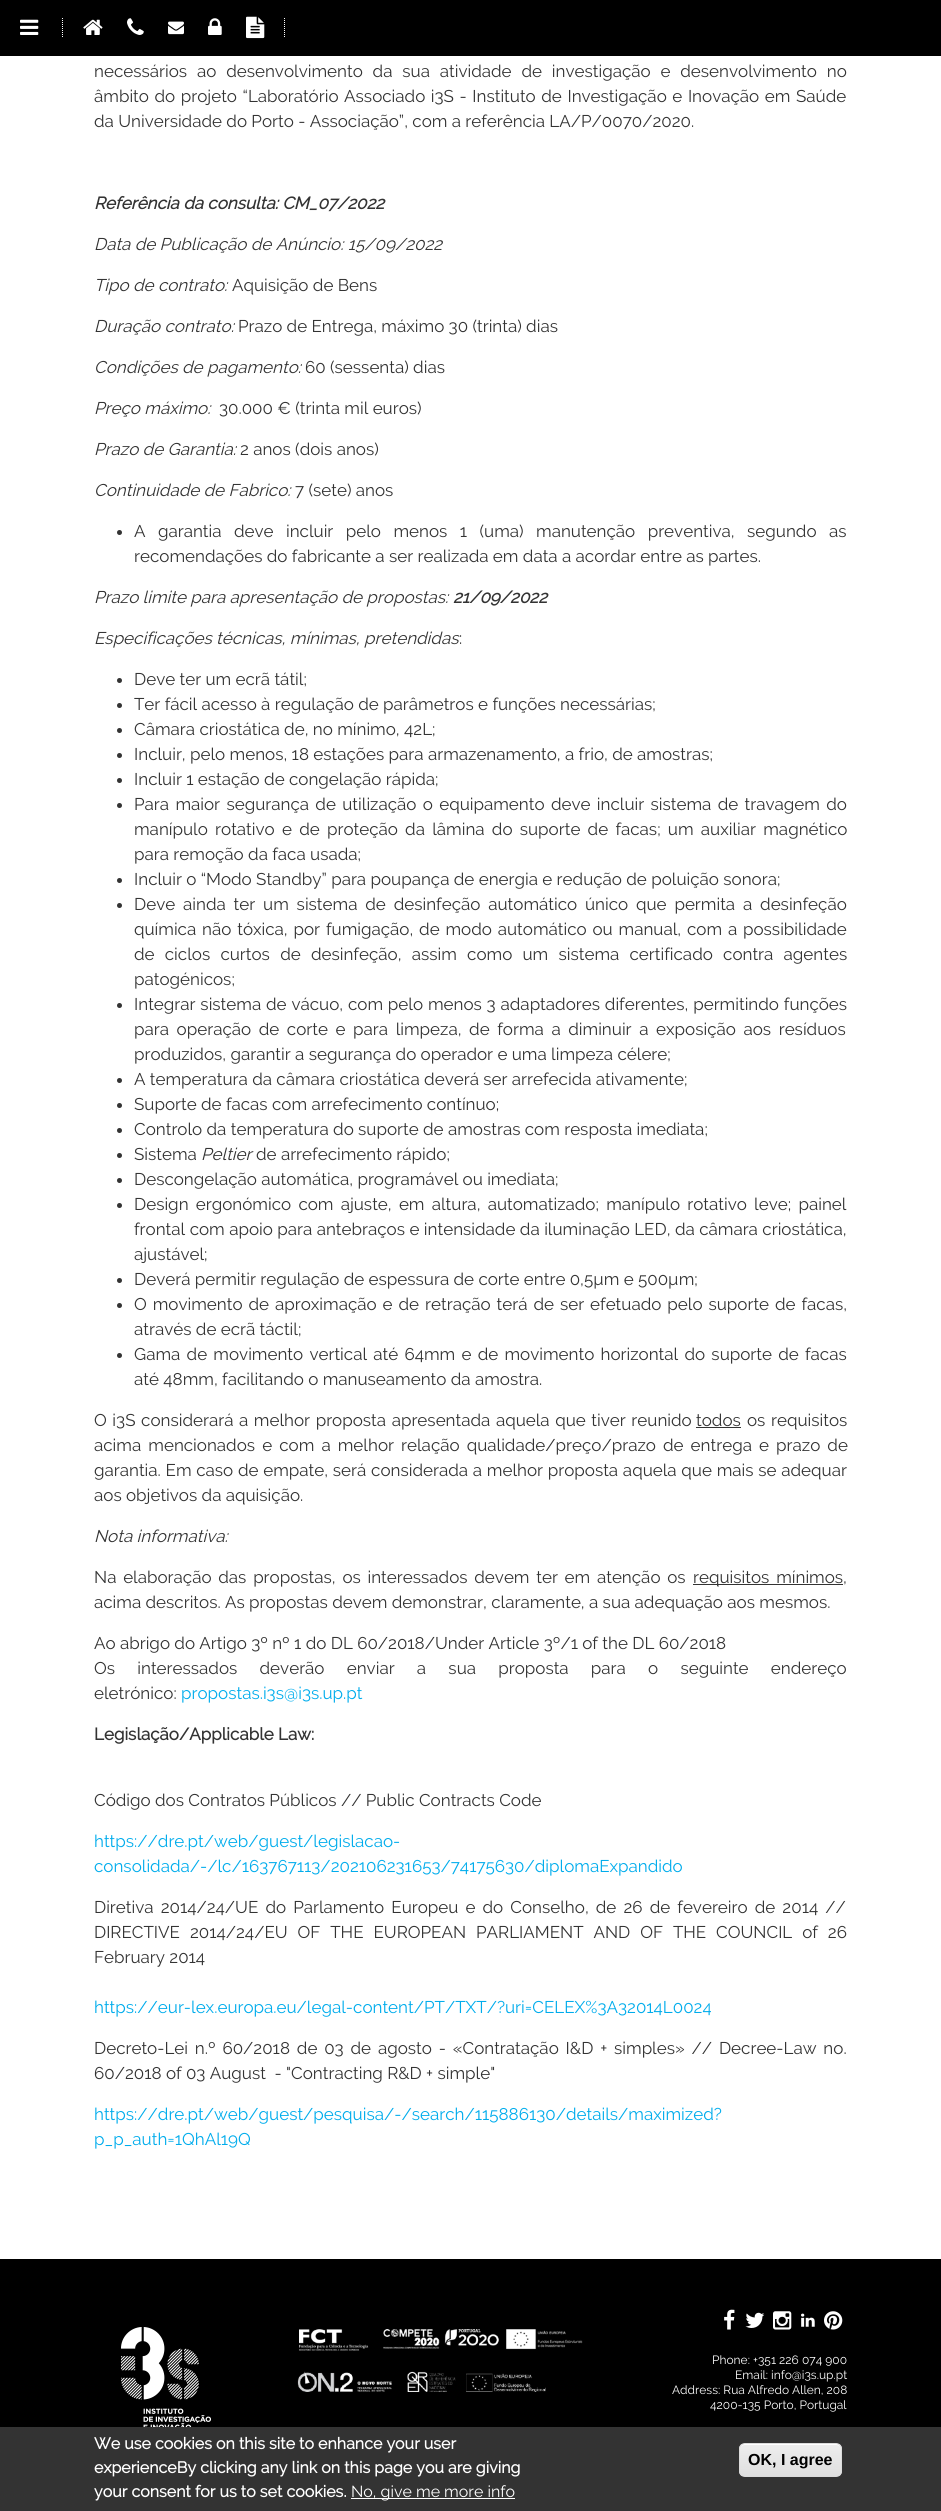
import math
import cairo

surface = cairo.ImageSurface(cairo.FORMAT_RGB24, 941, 2511)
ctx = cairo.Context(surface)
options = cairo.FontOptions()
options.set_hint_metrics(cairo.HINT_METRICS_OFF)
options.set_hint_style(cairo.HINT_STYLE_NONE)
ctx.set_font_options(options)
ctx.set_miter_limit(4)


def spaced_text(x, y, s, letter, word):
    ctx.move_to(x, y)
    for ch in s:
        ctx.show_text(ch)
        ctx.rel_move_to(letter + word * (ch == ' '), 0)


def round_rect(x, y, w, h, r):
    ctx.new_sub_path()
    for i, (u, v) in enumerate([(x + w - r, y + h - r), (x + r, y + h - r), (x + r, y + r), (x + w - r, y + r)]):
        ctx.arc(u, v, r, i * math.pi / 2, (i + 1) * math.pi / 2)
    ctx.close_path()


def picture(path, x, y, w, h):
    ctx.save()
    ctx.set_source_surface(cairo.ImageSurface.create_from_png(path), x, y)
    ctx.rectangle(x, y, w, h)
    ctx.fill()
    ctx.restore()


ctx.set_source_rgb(0, 0, 0)
ctx.paint()
picture("img1.png", 20, 19, 19, 16)
ctx.new_path()
ctx.move_to(62.5, 18)
ctx.line_to(62.5, 37)
ctx.set_source_rgb(1, 1, 1)
ctx.set_line_width(1)
ctx.set_dash([1, 1])
ctx.stroke()
picture("img2.png", 83, 19, 20, 16)
picture("img3.png", 127, 18, 17, 17)
picture("img4.png", 168, 21, 16, 14)
picture("img5.png", 208, 18, 14, 17)
picture("img6.png", 246, 16, 19, 23)
ctx.new_path()
ctx.move_to(284.5, 18)
ctx.line_to(284.5, 37)
ctx.stroke()
ctx.rectangle(0, 56, 941, 2203)
ctx.fill()
ctx.select_font_face("Raleway")
ctx.set_font_size(17)
ctx.set_source_rgb(0.2, 0.2, 0.2)
spaced_text(94, 77, "necessários ao desenvolvimento da sua atividade de investigação e desenvolvimento no", 0, 5.5)
spaced_text(94, 102, "âmbito do projeto “Laboratório Associado i3S - Instituto de Investigação e Inovação em Saúde", 0, 1.25)
ctx.move_to(94, 127)
ctx.show_text("da Universidade do Porto - Associação”, com a referência LA/P/0070/2020.")
ctx.select_font_face("Raleway", cairo.FONT_SLANT_ITALIC, cairo.FONT_WEIGHT_BOLD)
ctx.move_to(94, 209)
ctx.show_text("Referência da consulta: CM_07/2022")
ctx.select_font_face("Raleway", cairo.FONT_SLANT_ITALIC)
ctx.move_to(94, 250)
ctx.show_text("Data de Publicação de Anúncio: 15/09/2022")
ctx.move_to(94, 291)
ctx.show_text("Tipo de contrato:")
ctx.select_font_face("Raleway")
ctx.move_to(232, 291)
ctx.show_text("Aquisição de Bens")
ctx.select_font_face("Raleway", cairo.FONT_SLANT_ITALIC)
ctx.move_to(94, 332)
ctx.show_text("Duração contrato:")
ctx.select_font_face("Raleway")
ctx.move_to(238, 332)
ctx.show_text("Prazo de Entrega, máximo 30 (trinta) dias")
ctx.select_font_face("Raleway", cairo.FONT_SLANT_ITALIC)
ctx.move_to(94, 373)
ctx.show_text("Condições de pagamento:")
ctx.select_font_face("Raleway")
ctx.move_to(305, 373)
ctx.show_text("60 (sessenta) dias")
ctx.select_font_face("Raleway", cairo.FONT_SLANT_ITALIC)
ctx.move_to(94, 414)
ctx.show_text("Preço máximo:")
ctx.select_font_face("Raleway")
ctx.move_to(219, 414)
ctx.show_text("30.000 € (trinta mil euros)")
ctx.select_font_face("Raleway", cairo.FONT_SLANT_ITALIC)
ctx.move_to(94, 455)
ctx.show_text("Prazo de Garantia:")
ctx.select_font_face("Raleway")
ctx.move_to(240, 455)
ctx.show_text("2 anos (dois anos)")
ctx.select_font_face("Raleway", cairo.FONT_SLANT_ITALIC)
ctx.move_to(94, 496)
ctx.show_text("Continuidade de Fabrico:")
ctx.select_font_face("Raleway")
ctx.move_to(295, 496)
ctx.show_text("7 (sete) anos")
ctx.new_path()
ctx.arc(119.5, 532.5, 2.5, 0, 2 * math.pi)
ctx.fill()
spaced_text(134, 537, "A garantia deve incluir pelo menos 1 (uma) manutenção preventiva, segundo as", 0, 8.1)
ctx.move_to(134, 562)
ctx.show_text("recomendações do fabricante a ser realizada em data a acordar entre as partes.")
ctx.select_font_face("Raleway", cairo.FONT_SLANT_ITALIC)
ctx.move_to(94, 603)
ctx.show_text("Prazo limite para apresentação de propostas:")
ctx.select_font_face("Raleway", cairo.FONT_SLANT_ITALIC, cairo.FONT_WEIGHT_BOLD)
ctx.move_to(453, 603)
ctx.show_text("21/09/2022")
ctx.select_font_face("Raleway", cairo.FONT_SLANT_ITALIC)
ctx.move_to(94, 644)
ctx.show_text("Especificações técnicas, mínimas, pretendidas")
ctx.select_font_face("Raleway")
ctx.move_to(459, 644)
ctx.show_text(":")
ctx.new_path()
ctx.arc(119.5, 680.5, 2.5, 0, 2 * math.pi)
ctx.fill()
ctx.move_to(134, 685)
ctx.show_text("Deve ter um ecrã tátil;")
ctx.new_path()
ctx.arc(119.5, 705.5, 2.5, 0, 2 * math.pi)
ctx.fill()
ctx.move_to(134, 710)
ctx.show_text("Ter fácil acesso à regulação de parâmetros e funções necessárias;")
ctx.new_path()
ctx.arc(119.5, 730.5, 2.5, 0, 2 * math.pi)
ctx.fill()
ctx.move_to(134, 735)
ctx.show_text("Câmara criostática de, no mínimo, 42L;")
ctx.new_path()
ctx.arc(119.5, 755.5, 2.5, 0, 2 * math.pi)
ctx.fill()
ctx.move_to(134, 760)
ctx.show_text("Incluir, pelo menos, 18 estações para armazenamento, a frio, de amostras;")
ctx.new_path()
ctx.arc(119.5, 780.5, 2.5, 0, 2 * math.pi)
ctx.fill()
ctx.move_to(134, 785)
ctx.show_text("Incluir 1 estação de congelação rápida;")
ctx.new_path()
ctx.arc(119.5, 805.5, 2.5, 0, 2 * math.pi)
ctx.fill()
spaced_text(134, 810, "Para maior segurança de utilização o equipamento deve incluir sistema de travagem do", 0, 2)
spaced_text(134, 835, "manípulo rotativo e de proteção da lâmina do suporte de facas; um auxiliar magnético", 0, 2.9)
ctx.move_to(134, 860)
ctx.show_text("para remoção da faca usada;")
ctx.new_path()
ctx.arc(119.5, 880.5, 2.5, 0, 2 * math.pi)
ctx.fill()
ctx.move_to(134, 885)
ctx.show_text("Incluir o “Modo Standby” para poupança de energia e redução de poluição sonora;")
ctx.new_path()
ctx.arc(119.5, 905.5, 2.5, 0, 2 * math.pi)
ctx.fill()
spaced_text(134, 910, "Deve ainda ter um sistema de desinfeção automático único que permita a desinfeção", 0, 3.5)
spaced_text(134, 935, "química não tóxica, por fumigação, de modo automático ou manual, com a possibilidade", 0, 1.5)
spaced_text(134, 960, "de ciclos curtos de desinfeção, assim como um sistema certificado contra agentes", 0, 5.9)
ctx.move_to(134, 985)
ctx.show_text("patogénicos;")
ctx.new_path()
ctx.arc(119.5, 1005.5, 2.5, 0, 2 * math.pi)
ctx.fill()
spaced_text(134, 1010, "Integrar sistema de vácuo, com pelo menos 3 adaptadores diferentes, permitindo funções", 0, 0.5)
spaced_text(134, 1035, "para operação de corte e para limpeza, de forma a diminuir a exposição aos resíduos", 0, 3.25)
ctx.move_to(134, 1060)
ctx.show_text("produzidos, garantir a segurança do operador e uma limpeza célere;")
ctx.new_path()
ctx.arc(119.5, 1080.5, 2.5, 0, 2 * math.pi)
ctx.fill()
ctx.move_to(134, 1085)
ctx.show_text("A temperatura da câmara criostática deverá ser arrefecida ativamente;")
ctx.new_path()
ctx.arc(119.5, 1105.5, 2.5, 0, 2 * math.pi)
ctx.fill()
ctx.move_to(134, 1110)
ctx.show_text("Suporte de facas com arrefecimento contínuo;")
ctx.new_path()
ctx.arc(119.5, 1130.5, 2.5, 0, 2 * math.pi)
ctx.fill()
ctx.move_to(134, 1135)
ctx.show_text("Controlo da temperatura do suporte de amostras com resposta imediata;")
ctx.new_path()
ctx.arc(119.5, 1155.5, 2.5, 0, 2 * math.pi)
ctx.fill()
ctx.move_to(134, 1160)
ctx.show_text("Sistema")
ctx.select_font_face("Raleway", cairo.FONT_SLANT_ITALIC)
ctx.move_to(201, 1160)
ctx.show_text("Peltier")
ctx.select_font_face("Raleway")
ctx.move_to(256, 1160)
ctx.show_text("de arrefecimento rápido;")
ctx.new_path()
ctx.arc(119.5, 1180.5, 2.5, 0, 2 * math.pi)
ctx.fill()
ctx.move_to(134, 1185)
ctx.show_text("Descongelação automática, programável ou imediata;")
ctx.new_path()
ctx.arc(119.5, 1205.5, 2.5, 0, 2 * math.pi)
ctx.fill()
spaced_text(134, 1210, "Design ergonómico com ajuste, em altura, automatizado; manípulo rotativo leve; painel", 0, 2.9)
spaced_text(134, 1235, "frontal com apoio para antebraços e intensidade da iluminação LED, da câmara criostática,", 0, 0.1)
ctx.move_to(134, 1260)
ctx.show_text("ajustável;")
ctx.new_path()
ctx.arc(119.5, 1280.5, 2.5, 0, 2 * math.pi)
ctx.fill()
ctx.move_to(134, 1285)
ctx.show_text("Deverá permitir regulação de espessura de corte entre 0,5µm e 500µm;")
ctx.new_path()
ctx.arc(119.5, 1305.5, 2.5, 0, 2 * math.pi)
ctx.fill()
spaced_text(134, 1310, "O movimento de aproximação e de retração terá de ser efetuado pelo suporte de facas,", 0, 1.6)
ctx.move_to(134, 1335)
ctx.show_text("através de ecrã táctil;")
ctx.new_path()
ctx.arc(119.5, 1355.5, 2.5, 0, 2 * math.pi)
ctx.fill()
spaced_text(134, 1360, "Gama de movimento vertical até 64mm e de movimento horizontal do suporte de facas", 0, 1.9)
ctx.move_to(134, 1385)
ctx.show_text("até 48mm, facilitando o manuseamento da amostra.")
spaced_text(94, 1426, "O i3S considerará a melhor proposta apresentada aquela que tiver reunido", 0, 1.25)
ctx.move_to(696, 1426)
ctx.show_text("todos")
ctx.rectangle(696, 1427, 45, 1)
ctx.fill()
spaced_text(747, 1426, "os requisitos", 0, 1.25)
spaced_text(94, 1451, "acima mencionados e com a melhor relação qualidade/preço/prazo de entrega e prazo de", 0, 2.75)
spaced_text(94, 1476, "garantia. Em caso de empate, será considerada a melhor proposta aquela que mais se adequar", 0, 0.4)
ctx.move_to(94, 1501)
ctx.show_text("aos objetivos da aquisição.")
ctx.select_font_face("Raleway", cairo.FONT_SLANT_ITALIC)
ctx.move_to(94, 1542)
ctx.show_text("Nota informativa:")
ctx.select_font_face("Raleway")
spaced_text(94, 1583, "Na elaboração das propostas, os interessados devem ter em atenção os", 0, 2.4)
ctx.rectangle(693, 1584, 150, 1)
ctx.fill()
spaced_text(693, 1583, "requisitos mínimos", 0, 2.5)
ctx.move_to(843, 1583)
ctx.show_text(",")
ctx.move_to(94, 1608)
ctx.show_text("acima descritos. As propostas devem demonstrar, claramente, a sua adequação aos mesmos.")
ctx.move_to(94, 1649)
ctx.show_text("Ao abrigo do Artigo 3º nº 1 do DL 60/2018/Under Article 3º/1 of the DL 60/2018")
spaced_text(94, 1674, "Os interessados deverão enviar a sua proposta para o seguinte endereço", 0, 17.9)
ctx.move_to(94, 1699)
ctx.show_text("eletrónico:")
ctx.set_source_rgb(0, 0.675, 0.925)
ctx.move_to(181, 1699)
ctx.show_text("propostas.i3s@i3s.up.pt")
ctx.select_font_face("Raleway", cairo.FONT_SLANT_NORMAL, cairo.FONT_WEIGHT_BOLD)
ctx.set_source_rgb(0.2, 0.2, 0.2)
ctx.move_to(94, 1740)
ctx.show_text("Legislação/Applicable Law:")
ctx.select_font_face("Raleway")
ctx.move_to(94, 1806)
ctx.show_text("Código dos Contratos Públicos // Public Contracts Code")
ctx.set_source_rgb(0, 0.675, 0.925)
ctx.move_to(94, 1847)
ctx.show_text("https://dre.pt/web/guest/legislacao-")
ctx.move_to(94, 1872)
ctx.show_text("consolidada/-/lc/163767113/202106231653/74175630/diplomaExpandido")
ctx.set_source_rgb(0.2, 0.2, 0.2)
spaced_text(94, 1913, "Diretiva 2014/24/UE do Parlamento Europeu e do Conselho, de 26 de fevereiro de 2014 //", 0, 2.75)
spaced_text(94, 1938, "DIRECTIVE 2014/24/EU OF THE EUROPEAN PARLIAMENT AND OF THE COUNCIL of 26", 0, 5.6)
ctx.move_to(94, 1963)
ctx.show_text("February 2014")
ctx.set_source_rgb(0, 0.675, 0.925)
ctx.move_to(94, 2013)
ctx.show_text("https://eur-lex.europa.eu/legal-content/PT/TXT/?uri=CELEX%3A32014L0024")
ctx.set_source_rgb(0.2, 0.2, 0.2)
spaced_text(94, 2054, "Decreto-Lei n.º 60/2018 de 03 de agosto - «Contratação I&D + simples» // Decree-Law no.", 0, 2.5)
ctx.move_to(94, 2079)
ctx.show_text("60/2018 of 03 August  - \"Contracting R&D + simple\"")
ctx.set_source_rgb(0, 0.675, 0.925)
ctx.move_to(94, 2120)
ctx.show_text("https://dre.pt/web/guest/pesquisa/-/search/115886130/details/maximized?")
ctx.move_to(94, 2145)
ctx.show_text("p_p_auth=1QhAl19Q")
picture("img7.png", 121, 2327, 90, 100)
picture("img8.png", 297, 2329, 286, 63)
picture("img9.png", 724, 2309, 11, 21)
picture("img10.png", 745, 2312, 20, 16)
picture("img11.png", 773, 2311, 19, 19)
picture("img12.png", 801, 2313, 14, 14)
picture("img13.png", 824, 2311, 19, 19)
ctx.set_font_size(12)
ctx.set_source_rgb(1, 1, 1)
ctx.move_to(712, 2364)
ctx.show_text("Phone: +351 226 074 900")
ctx.move_to(735, 2379)
ctx.show_text("Email: info@i3s.up.pt")
ctx.move_to(672, 2394)
ctx.show_text("Address: Rua Alfredo Allen, 208")
ctx.move_to(710, 2409)
ctx.show_text("4200-135 Porto, Portugal")
ctx.set_source_rgb(0.2, 0.2, 0.2)
ctx.rectangle(0, 2427, 941, 84)
ctx.fill()
ctx.select_font_face("Raleway", cairo.FONT_SLANT_NORMAL, cairo.FONT_WEIGHT_BOLD)
ctx.set_font_size(16)
ctx.set_source_rgb(1, 1, 1)
ctx.move_to(94, 2449)
ctx.show_text("We use cookies on this site to enhance your user")
ctx.move_to(94, 2473)
ctx.show_text("experienceBy clicking any link on this page you are giving")
ctx.move_to(94, 2497)
ctx.show_text("your consent for us to set cookies.")
ctx.rectangle(351, 2498, 164, 1)
ctx.fill()
ctx.select_font_face("Raleway")
ctx.move_to(351, 2497)
ctx.show_text("No, give me more info")
ctx.save()
round_rect(739, 2443, 103, 34, 6)
ctx.clip()
gradient = cairo.LinearGradient(791, 2444, 791, 2476)
gradient.add_color_stop_rgba(0.05, 0.929, 0.929, 0.929, 1)
gradient.add_color_stop_rgba(1, 0.875, 0.875, 0.875, 1)
ctx.set_source(gradient)
ctx.rectangle(739, 2444, 103, 32)
ctx.fill()
ctx.restore()
ctx.new_path()
ctx.move_to(745, 2445)
ctx.line_to(836, 2445)
ctx.curve_to(839, 2445, 841, 2447, 841, 2450)
ctx.curve_to(841, 2440, 826, 2444, 821, 2444)
ctx.line_to(760, 2444)
ctx.curve_to(755, 2444, 740, 2440, 740, 2450)
ctx.curve_to(740, 2447, 742, 2445, 745, 2445)
ctx.close_path()
ctx.fill()
round_rect(739.5, 2443.5, 102, 33, 5.5)
ctx.set_source_rgb(0.863, 0.863, 0.863)
ctx.set_dash([])
ctx.stroke()
ctx.select_font_face("Liberation Sans", cairo.FONT_SLANT_NORMAL, cairo.FONT_WEIGHT_BOLD)
ctx.set_source_rgb(0, 0, 0)
ctx.move_to(748, 2465)
ctx.show_text("OK, I agree")
surface.write_to_png("page.png")
